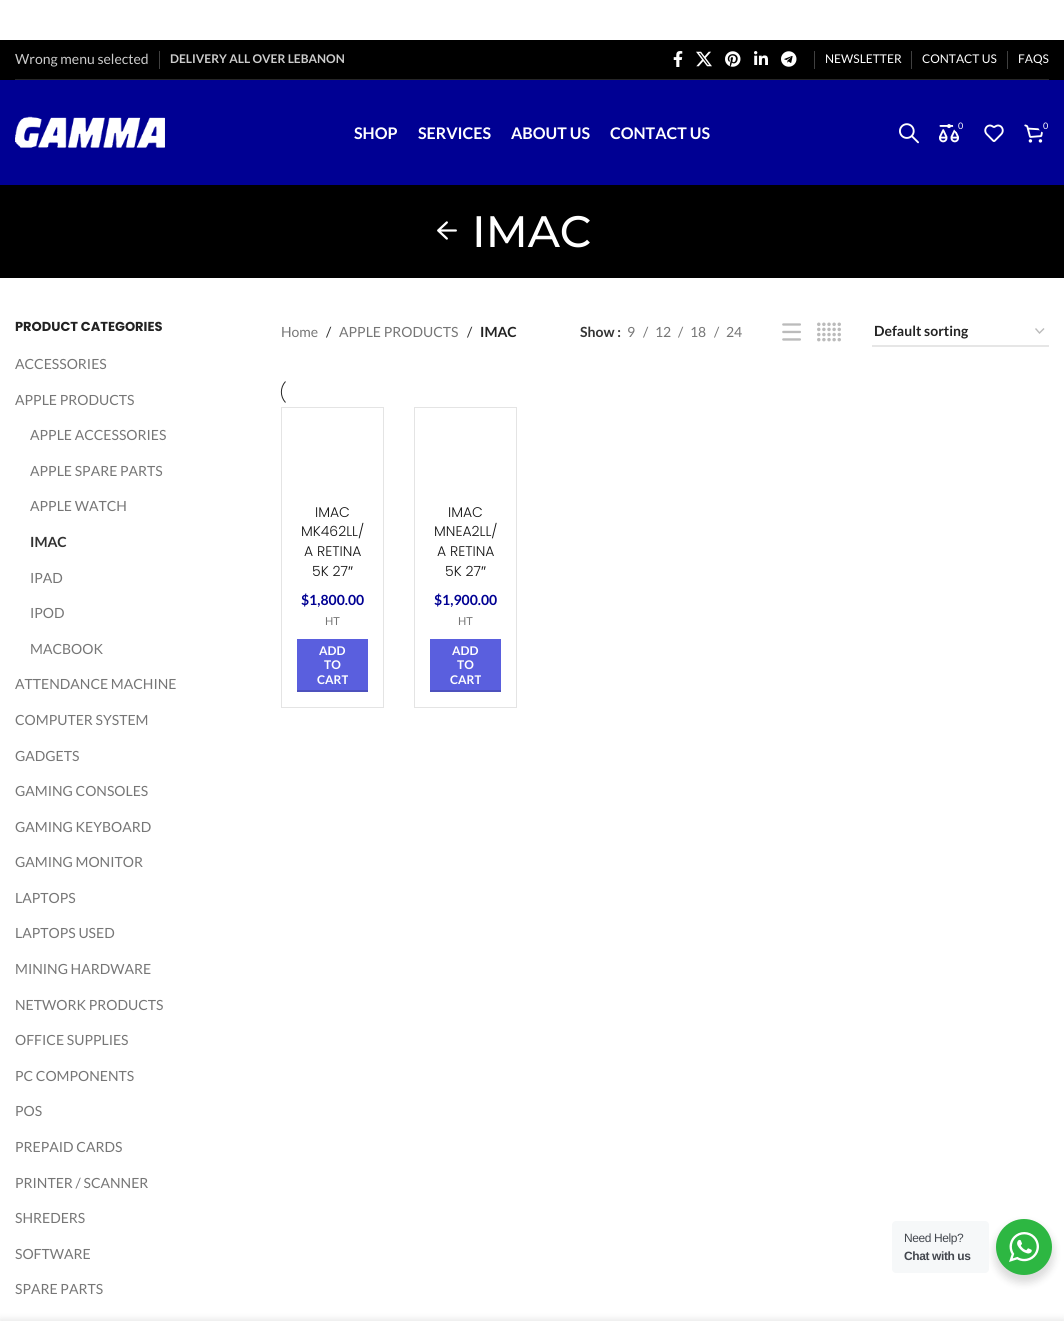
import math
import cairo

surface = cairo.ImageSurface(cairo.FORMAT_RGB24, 1064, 1321)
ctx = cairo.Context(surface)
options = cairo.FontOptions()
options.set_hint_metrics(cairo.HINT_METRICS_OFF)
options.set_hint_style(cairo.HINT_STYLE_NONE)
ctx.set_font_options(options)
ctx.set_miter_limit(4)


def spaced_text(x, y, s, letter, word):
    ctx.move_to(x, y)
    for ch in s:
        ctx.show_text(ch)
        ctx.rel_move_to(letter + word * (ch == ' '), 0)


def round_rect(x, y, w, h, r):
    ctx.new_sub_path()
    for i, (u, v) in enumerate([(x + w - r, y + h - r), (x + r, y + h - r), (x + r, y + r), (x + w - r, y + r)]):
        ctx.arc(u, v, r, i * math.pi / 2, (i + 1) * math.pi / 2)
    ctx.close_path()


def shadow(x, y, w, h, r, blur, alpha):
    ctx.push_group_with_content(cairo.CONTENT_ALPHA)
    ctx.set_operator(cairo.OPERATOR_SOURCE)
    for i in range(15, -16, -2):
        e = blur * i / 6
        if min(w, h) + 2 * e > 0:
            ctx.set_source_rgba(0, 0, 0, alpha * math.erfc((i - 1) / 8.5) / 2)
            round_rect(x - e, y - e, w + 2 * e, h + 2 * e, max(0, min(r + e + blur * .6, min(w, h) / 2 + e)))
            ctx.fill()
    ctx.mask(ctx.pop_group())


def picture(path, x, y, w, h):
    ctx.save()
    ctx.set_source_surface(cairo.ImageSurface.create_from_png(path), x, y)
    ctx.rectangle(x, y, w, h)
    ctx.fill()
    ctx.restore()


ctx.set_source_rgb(1, 1, 1)
ctx.paint()
ctx.set_source_rgb(0, 0, 0)
ctx.rectangle(0, 40, 1064, 40)
ctx.fill()
ctx.set_source_rgb(0.149, 0.149, 0.149)
ctx.rectangle(15, 79, 1034, 1)
ctx.fill()
ctx.select_font_face("Lato")
ctx.set_font_size(14)
ctx.set_source_rgb(0.8, 0.8, 0.8)
ctx.move_to(15, 64)
ctx.show_text("Wrong menu selected")
ctx.set_source_rgb(0.251, 0.251, 0.251)
ctx.rectangle(159, 51, 1, 18)
ctx.fill()
ctx.select_font_face("Lato", cairo.FONT_SLANT_NORMAL, cairo.FONT_WEIGHT_BOLD)
ctx.set_font_size(12)
ctx.set_source_rgb(0.8, 0.8, 0.8)
ctx.move_to(170, 63)
ctx.show_text("DELIVERY ALL OVER LEBANON")
picture("img1.png", 673, 51, 10, 16)
picture("img2.png", 696, 51, 16, 16)
picture("img3.png", 725, 51, 16, 16)
picture("img4.png", 754, 51, 14, 14)
picture("img5.png", 781, 51, 16, 16)
ctx.set_source_rgb(0.251, 0.251, 0.251)
ctx.rectangle(814, 51, 1, 18)
ctx.fill()
ctx.select_font_face("Lato")
ctx.set_source_rgb(1, 1, 1)
ctx.move_to(825, 63)
ctx.show_text("NEWSLETTER")
ctx.set_source_rgb(0.251, 0.251, 0.251)
ctx.rectangle(911, 51, 1, 18)
ctx.fill()
ctx.set_source_rgb(1, 1, 1)
ctx.move_to(922, 63)
ctx.show_text("CONTACT US")
ctx.set_source_rgb(0.251, 0.251, 0.251)
ctx.rectangle(1007, 51, 1, 18)
ctx.fill()
ctx.set_source_rgb(1, 1, 1)
ctx.move_to(1018, 63)
ctx.show_text("FAQS")
ctx.set_source_rgb(0, 0, 0.576)
ctx.rectangle(0, 80, 1064, 105)
ctx.fill()
picture("img6.png", 15, 116, 150, 32)
picture("img7.png", 899, 123, 20, 21)
picture("img8.png", 939, 124, 20, 19)
ctx.arc(960.5, 125.5, 7.5, 0, 2 * math.pi)
ctx.fill()
ctx.set_font_size(9)
ctx.set_source_rgb(1, 1, 1)
ctx.move_to(958, 129)
ctx.show_text("0")
picture("img9.png", 984, 124, 20, 18)
picture("img10.png", 1024, 124, 19, 19)
ctx.set_source_rgb(0, 0, 0.576)
ctx.arc(1045.5, 125.5, 7.5, 0, 2 * math.pi)
ctx.fill()
ctx.set_source_rgb(1, 1, 1)
ctx.move_to(1043, 129)
ctx.show_text("0")
ctx.select_font_face("Lato", cairo.FONT_SLANT_NORMAL, cairo.FONT_WEIGHT_BOLD)
ctx.set_font_size(16)
ctx.move_to(354, 139)
ctx.show_text("SHOP")
ctx.move_to(418, 139)
ctx.show_text("SERVICES")
ctx.move_to(511, 139)
ctx.show_text("ABOUT US")
ctx.move_to(610, 139)
ctx.show_text("CONTACT US")
ctx.set_source_rgb(0, 0, 0)
ctx.rectangle(0, 185, 1064, 93)
ctx.fill()
picture("img11.png", 437, 221, 20, 19)
ctx.select_font_face("Montserrat Medium")
ctx.set_font_size(44)
ctx.set_source_rgb(1, 1, 1)
ctx.move_to(472, 247)
ctx.show_text("IMAC")
ctx.select_font_face("Poppins", cairo.FONT_SLANT_NORMAL, cairo.FONT_WEIGHT_BOLD)
ctx.set_font_size(13)
ctx.set_source_rgb(0.137, 0.137, 0.137)
ctx.move_to(15, 331)
ctx.show_text("PRODUCT CATEGORIES")
ctx.select_font_face("Lato")
ctx.set_font_size(14)
ctx.set_source_rgb(0.463, 0.463, 0.463)
ctx.move_to(15, 369)
ctx.show_text("ACCESSORIES")
ctx.move_to(15, 405)
ctx.show_text("APPLE PRODUCTS")
ctx.move_to(30, 440)
ctx.show_text("APPLE ACCESSORIES")
ctx.move_to(30, 476)
ctx.show_text("APPLE SPARE PARTS")
ctx.move_to(30, 511)
ctx.show_text("APPLE WATCH")
ctx.select_font_face("Lato", cairo.FONT_SLANT_NORMAL, cairo.FONT_WEIGHT_BOLD)
ctx.set_source_rgb(0.2, 0.2, 0.2)
ctx.move_to(30, 547)
ctx.show_text("IMAC")
ctx.select_font_face("Lato")
ctx.set_source_rgb(0.463, 0.463, 0.463)
ctx.move_to(30, 583)
ctx.show_text("IPAD")
ctx.move_to(30, 618)
ctx.show_text("IPOD")
ctx.move_to(30, 654)
ctx.show_text("MACBOOK")
ctx.move_to(15, 689)
ctx.show_text("ATTENDANCE MACHINE")
ctx.move_to(15, 725)
ctx.show_text("COMPUTER SYSTEM")
ctx.move_to(15, 761)
ctx.show_text("GADGETS")
ctx.move_to(15, 796)
ctx.show_text("GAMING CONSOLES")
ctx.move_to(15, 832)
ctx.show_text("GAMING KEYBOARD")
ctx.move_to(15, 867)
ctx.show_text("GAMING MONITOR")
ctx.move_to(15, 903)
ctx.show_text("LAPTOPS")
ctx.move_to(15, 938)
ctx.show_text("LAPTOPS USED")
ctx.move_to(15, 974)
ctx.show_text("MINING HARDWARE")
ctx.move_to(15, 1010)
ctx.show_text("NETWORK PRODUCTS")
ctx.move_to(15, 1045)
ctx.show_text("OFFICE SUPPLIES")
ctx.move_to(15, 1081)
ctx.show_text("PC COMPONENTS")
ctx.move_to(15, 1116)
ctx.show_text("POS")
ctx.move_to(15, 1152)
ctx.show_text("PREPAID CARDS")
ctx.move_to(15, 1188)
ctx.show_text("PRINTER / SCANNER")
ctx.move_to(15, 1223)
ctx.show_text("SHREDERS")
ctx.move_to(15, 1259)
ctx.show_text("SOFTWARE")
ctx.move_to(15, 1294)
ctx.show_text("SPARE PARTS")
ctx.move_to(281, 337)
ctx.show_text("Home")
ctx.set_source_rgb(0.169, 0.169, 0.169)
ctx.move_to(326, 337)
ctx.show_text("/")
ctx.set_source_rgb(0.463, 0.463, 0.463)
ctx.move_to(339, 337)
ctx.show_text("APPLE PRODUCTS")
ctx.set_source_rgb(0.169, 0.169, 0.169)
ctx.move_to(467, 337)
ctx.show_text("/")
ctx.select_font_face("Lato", cairo.FONT_SLANT_NORMAL, cairo.FONT_WEIGHT_BOLD)
ctx.set_source_rgb(0.137, 0.137, 0.137)
ctx.move_to(480, 337)
ctx.show_text("IMAC")
ctx.set_source_rgb(0.2, 0.2, 0.2)
ctx.move_to(580, 337)
ctx.show_text("Show :")
ctx.select_font_face("Lato")
ctx.set_source_rgb(0.463, 0.463, 0.463)
ctx.move_to(627, 337)
ctx.show_text("9")
ctx.move_to(643, 337)
ctx.show_text("/")
ctx.move_to(655, 337)
ctx.show_text("12")
ctx.move_to(678, 337)
ctx.show_text("/")
ctx.move_to(690, 337)
ctx.show_text("18")
ctx.move_to(714, 337)
ctx.show_text("/")
ctx.move_to(726, 337)
ctx.show_text("24")
picture("img12.png", 782, 323, 19, 18)
picture("img13.png", 817, 322, 24, 20)
ctx.new_path()
ctx.move_to(1035.5, 328.5)
ctx.line_to(1039.5, 333)
ctx.line_to(1044, 328.5)
ctx.set_source_rgb(0.733, 0.733, 0.733)
ctx.set_line_width(1.4)
ctx.stroke()
ctx.set_source_rgb(0.902, 0.902, 0.902)
ctx.rectangle(872, 345, 177, 2)
ctx.fill()
ctx.select_font_face("Lato", cairo.FONT_SLANT_NORMAL, cairo.FONT_WEIGHT_BOLD)
ctx.set_source_rgb(0.137, 0.137, 0.137)
ctx.move_to(874, 336)
ctx.show_text("Default sorting")
ctx.new_path()
ctx.move_to(285.5, 402.5)
ctx.curve_to(280, 396.5, 280, 387.5, 285.5, 381.5)
ctx.set_source_rgb(0.141, 0.141, 0.141)
ctx.set_line_width(1)
ctx.stroke()
ctx.rectangle(281.5, 407.5, 102, 300)
ctx.set_source_rgb(0.894, 0.894, 0.894)
ctx.stroke()
ctx.select_font_face("Poppins Light")
ctx.set_source_rgb(0.078, 0.078, 0.078)
ctx.move_to(315, 517)
ctx.show_text("IMAC")
ctx.move_to(301, 536)
ctx.show_text("MK462LL/")
ctx.move_to(304, 556)
ctx.show_text("A RETINA")
ctx.move_to(312, 576)
ctx.show_text("5K 27")
ctx.select_font_face("Liberation Sans")
ctx.move_to(348, 576)
ctx.show_text("″")
ctx.select_font_face("Lato", cairo.FONT_SLANT_NORMAL, cairo.FONT_WEIGHT_BOLD)
ctx.set_source_rgb(0, 0, 0.576)
ctx.move_to(301, 605)
ctx.show_text("$1,800.00")
ctx.select_font_face("Lato")
ctx.set_font_size(11)
ctx.set_source_rgb(0.463, 0.463, 0.463)
ctx.move_to(325, 625)
ctx.show_text("HT")
ctx.set_source_rgb(0.353, 0.373, 0.871)
ctx.rectangle(297, 639, 71, 51)
ctx.fill()
ctx.set_source_rgb(0.302, 0.318, 0.741)
ctx.rectangle(297, 690, 71, 2)
ctx.fill()
ctx.select_font_face("Lato", cairo.FONT_SLANT_NORMAL, cairo.FONT_WEIGHT_BOLD)
ctx.set_font_size(12)
ctx.set_source_rgb(1, 1, 1)
ctx.move_to(319, 655)
ctx.show_text("ADD")
ctx.move_to(324, 669)
ctx.show_text("TO")
ctx.move_to(317, 684)
ctx.show_text("CART")
ctx.rectangle(414.5, 407.5, 102, 300)
ctx.set_source_rgb(0.894, 0.894, 0.894)
ctx.stroke()
ctx.select_font_face("Poppins Light")
ctx.set_font_size(14)
ctx.set_source_rgb(0.078, 0.078, 0.078)
ctx.move_to(448, 517)
ctx.show_text("IMAC")
ctx.move_to(434, 536)
ctx.show_text("MNEA2LL/")
ctx.move_to(437, 556)
ctx.show_text("A RETINA")
ctx.move_to(445, 576)
ctx.show_text("5K 27")
ctx.select_font_face("Liberation Sans")
ctx.move_to(481, 576)
ctx.show_text("″")
ctx.select_font_face("Lato", cairo.FONT_SLANT_NORMAL, cairo.FONT_WEIGHT_BOLD)
ctx.set_source_rgb(0, 0, 0.576)
ctx.move_to(434, 605)
ctx.show_text("$1,900.00")
ctx.select_font_face("Lato")
ctx.set_font_size(11)
ctx.set_source_rgb(0.463, 0.463, 0.463)
ctx.move_to(458, 625)
ctx.show_text("HT")
ctx.set_source_rgb(0.353, 0.373, 0.871)
ctx.rectangle(430, 639, 71, 51)
ctx.fill()
ctx.set_source_rgb(0.302, 0.318, 0.741)
ctx.rectangle(430, 690, 71, 2)
ctx.fill()
ctx.select_font_face("Lato", cairo.FONT_SLANT_NORMAL, cairo.FONT_WEIGHT_BOLD)
ctx.set_font_size(12)
ctx.set_source_rgb(1, 1, 1)
ctx.move_to(452, 655)
ctx.show_text("ADD")
ctx.move_to(457, 669)
ctx.show_text("TO")
ctx.move_to(450, 684)
ctx.show_text("CART")
ctx.set_source_rgb(0, 0, 0)
shadow(994, 1223, 60, 60, 30, 4, 0.14)
ctx.set_source_rgb(0.961, 0.969, 0.976)
round_rect(892, 1221, 97, 52, 4)
ctx.fill()
ctx.select_font_face("Liberation Sans")
ctx.set_source_rgb(0.263, 0.278, 0.306)
spaced_text(904, 1242, "Need Help?", -0.4, 0)
ctx.select_font_face("Liberation Sans", cairo.FONT_SLANT_NORMAL, cairo.FONT_WEIGHT_BOLD)
spaced_text(904, 1260, "Chat with us", -0.4, 0)
ctx.set_source_rgb(0.176, 0.718, 0.259)
ctx.new_path()
ctx.arc(1024, 1247, 28, 0, 2 * math.pi)
ctx.fill()
picture("img14.png", 1009, 1232, 30, 30)
ctx.set_source_rgb(0, 0, 0)
shadow(0, 1321, 1064, 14, 0, 4.5, 0.14)
surface.write_to_png("page.png")
